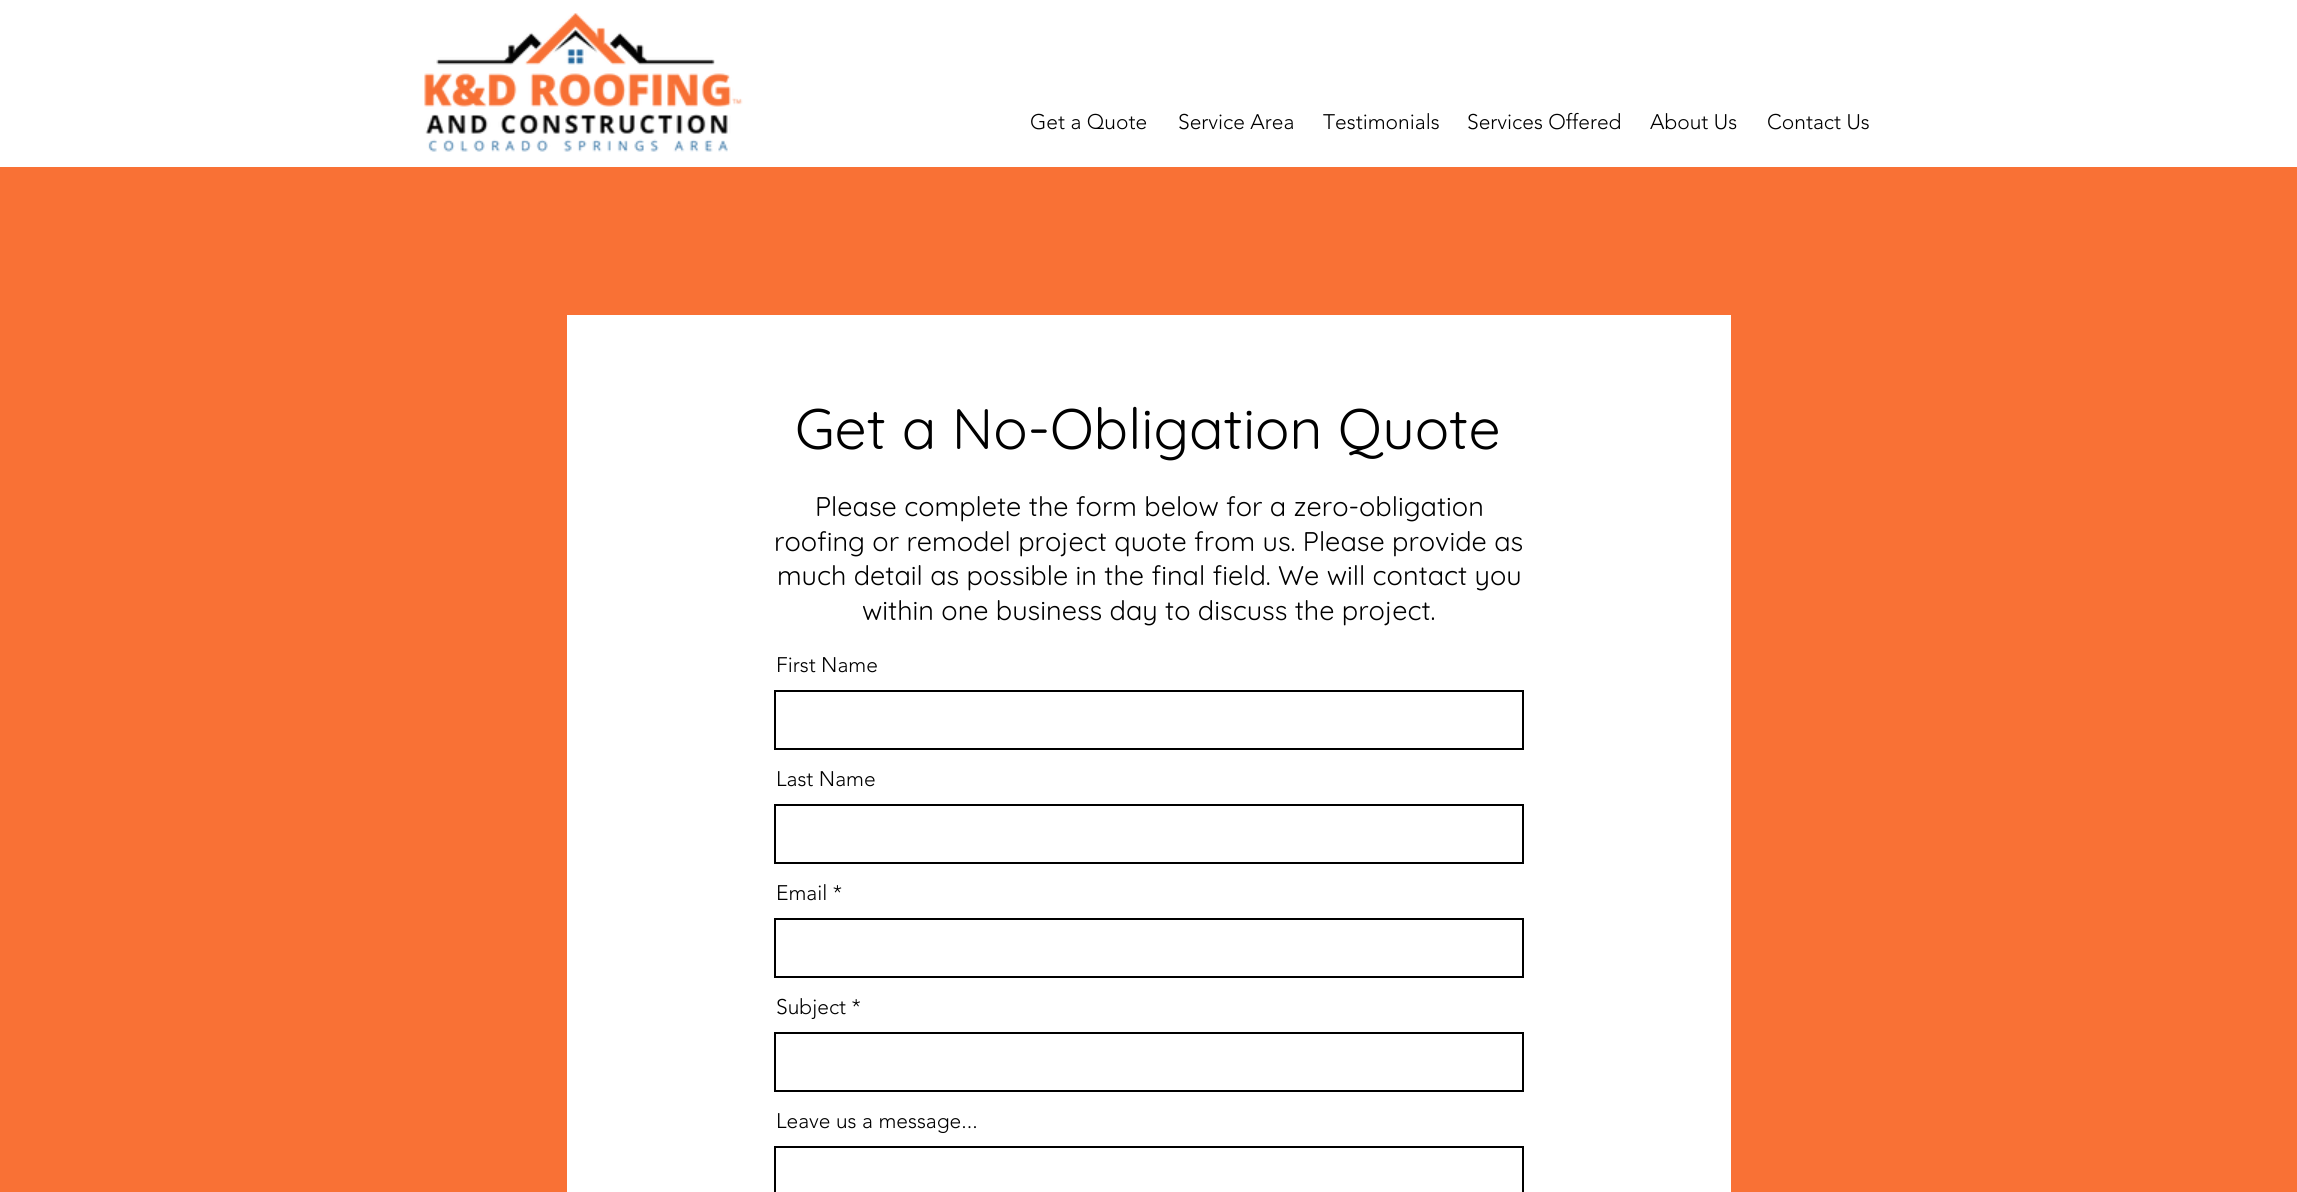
import math
import cairo

surface = cairo.ImageSurface(cairo.FORMAT_RGB24, 2297, 1192)
ctx = cairo.Context(surface)
options = cairo.FontOptions()
options.set_hint_metrics(cairo.HINT_METRICS_OFF)
options.set_hint_style(cairo.HINT_STYLE_NONE)
ctx.set_font_options(options)
ctx.set_miter_limit(4)


def picture(path, x, y, w, h):
    ctx.save()
    ctx.set_source_surface(cairo.ImageSurface.create_from_png(path), x, y)
    ctx.rectangle(x, y, w, h)
    ctx.fill()
    ctx.restore()


ctx.set_source_rgb(1, 1, 1)
ctx.paint()
picture("img1.png", 424, 13, 319, 139)
ctx.select_font_face("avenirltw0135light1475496 Light")
ctx.set_font_size(21)
ctx.set_source_rgb(0, 0, 0)
ctx.move_to(1030, 129)
ctx.show_text("Get a Quote")
ctx.move_to(1178, 129)
ctx.show_text("Service Area")
ctx.move_to(1323, 129)
ctx.show_text("Testimonials")
ctx.move_to(1467, 129)
ctx.show_text("Services Offered")
ctx.move_to(1650, 129)
ctx.show_text("About Us")
ctx.move_to(1767, 129)
ctx.show_text("Contact Us")
ctx.set_source_rgb(0.973, 0.443, 0.208)
ctx.rectangle(0, 167, 2297, 1025)
ctx.fill()
ctx.set_source_rgb(1, 1, 1)
ctx.rectangle(567, 315, 1164, 877)
ctx.fill()
ctx.select_font_face("Quicksand")
ctx.set_font_size(57)
ctx.set_source_rgb(0, 0, 0)
ctx.move_to(795, 449)
ctx.show_text("Get a No-Obligation Quote")
ctx.set_font_size(27)
ctx.move_to(815, 516)
ctx.show_text("Please complete the form below for a zero-obligation")
ctx.move_to(774, 551)
ctx.show_text("roofing or remodel project quote from us. Please provide as")
ctx.move_to(777, 585)
ctx.show_text("much detail as possible in the final field. We will contact you")
ctx.move_to(862, 620)
ctx.show_text("within one business day to discuss the project.")
ctx.select_font_face("avenirltw0135light1475496 Light")
ctx.set_font_size(21)
ctx.move_to(776, 672)
ctx.show_text("First Name")
ctx.rectangle(775, 691, 748, 58)
ctx.stroke()
ctx.move_to(776, 786)
ctx.show_text("Last Name")
ctx.rectangle(775, 805, 748, 58)
ctx.stroke()
ctx.move_to(776, 900)
ctx.show_text("Email *")
ctx.rectangle(775, 919, 748, 58)
ctx.stroke()
ctx.move_to(776, 1014)
ctx.show_text("Subject *")
ctx.rectangle(775, 1033, 748, 58)
ctx.stroke()
ctx.move_to(776, 1128)
ctx.show_text("Leave us a message...")
ctx.rectangle(775, 1147, 748, 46)
ctx.stroke()
surface.write_to_png("page.png")
